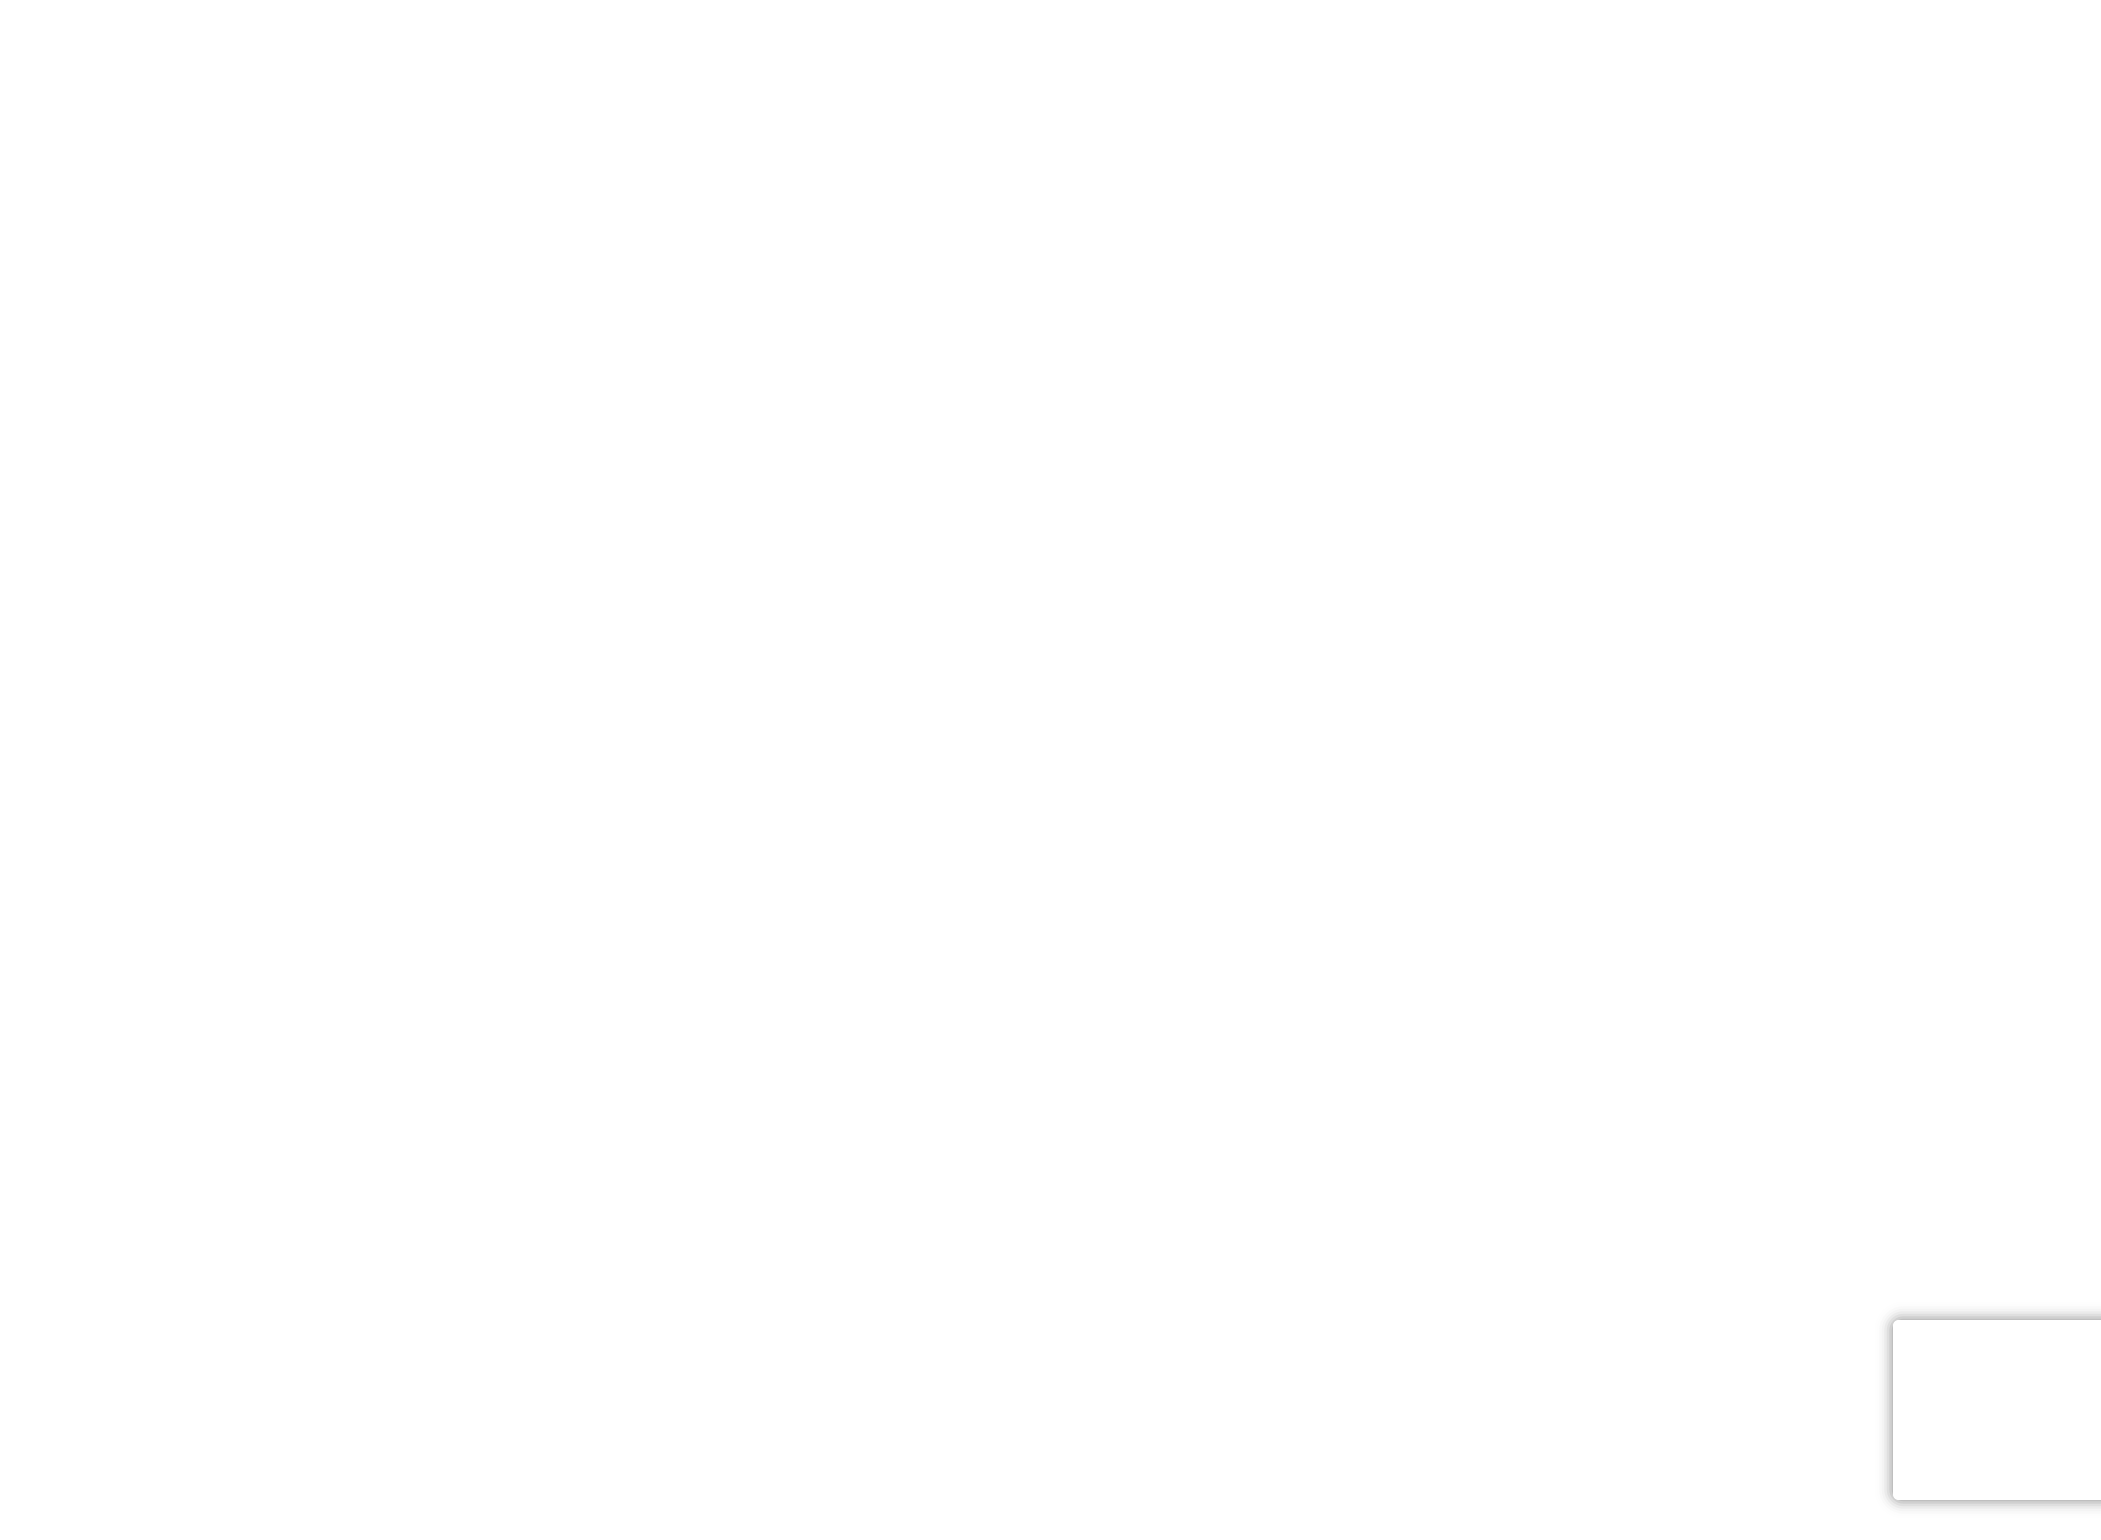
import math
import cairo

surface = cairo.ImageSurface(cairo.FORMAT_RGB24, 2101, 1540)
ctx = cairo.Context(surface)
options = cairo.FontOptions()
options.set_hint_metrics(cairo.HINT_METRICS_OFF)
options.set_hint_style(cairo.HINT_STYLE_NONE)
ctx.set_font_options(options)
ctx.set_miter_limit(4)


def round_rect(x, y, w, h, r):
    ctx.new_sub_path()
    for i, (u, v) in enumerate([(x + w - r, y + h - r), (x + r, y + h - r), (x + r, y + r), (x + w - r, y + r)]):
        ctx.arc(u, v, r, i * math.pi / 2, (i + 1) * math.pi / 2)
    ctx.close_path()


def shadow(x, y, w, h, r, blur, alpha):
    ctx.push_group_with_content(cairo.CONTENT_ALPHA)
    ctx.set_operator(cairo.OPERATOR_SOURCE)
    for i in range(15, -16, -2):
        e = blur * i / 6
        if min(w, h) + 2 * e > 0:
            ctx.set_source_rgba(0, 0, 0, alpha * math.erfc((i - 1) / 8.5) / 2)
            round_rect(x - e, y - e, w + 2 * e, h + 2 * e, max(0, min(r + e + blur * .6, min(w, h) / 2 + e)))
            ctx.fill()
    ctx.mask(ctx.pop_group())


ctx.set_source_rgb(1, 1, 1)
ctx.paint()
ctx.save()
ctx.set_fill_rule(cairo.FILL_RULE_EVEN_ODD)
ctx.new_path()
ctx.move_to(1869, 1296)
ctx.line_to(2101, 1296)
ctx.line_to(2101, 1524)
ctx.line_to(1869, 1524)
ctx.close_path()
ctx.move_to(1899, 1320)
ctx.line_to(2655, 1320)
ctx.curve_to(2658.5, 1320, 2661, 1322.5, 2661, 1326)
ctx.line_to(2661, 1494)
ctx.curve_to(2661, 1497.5, 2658.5, 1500, 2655, 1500)
ctx.line_to(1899, 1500)
ctx.curve_to(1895.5, 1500, 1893, 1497.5, 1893, 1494)
ctx.line_to(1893, 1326)
ctx.curve_to(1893, 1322.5, 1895.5, 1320, 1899, 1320)
ctx.close_path()
ctx.clip()
ctx.set_source_rgb(0.502, 0.502, 0.502)
shadow(1893, 1320, 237, 180, 6, 7.5, 1)
ctx.restore()
surface.write_to_png("page.png")
